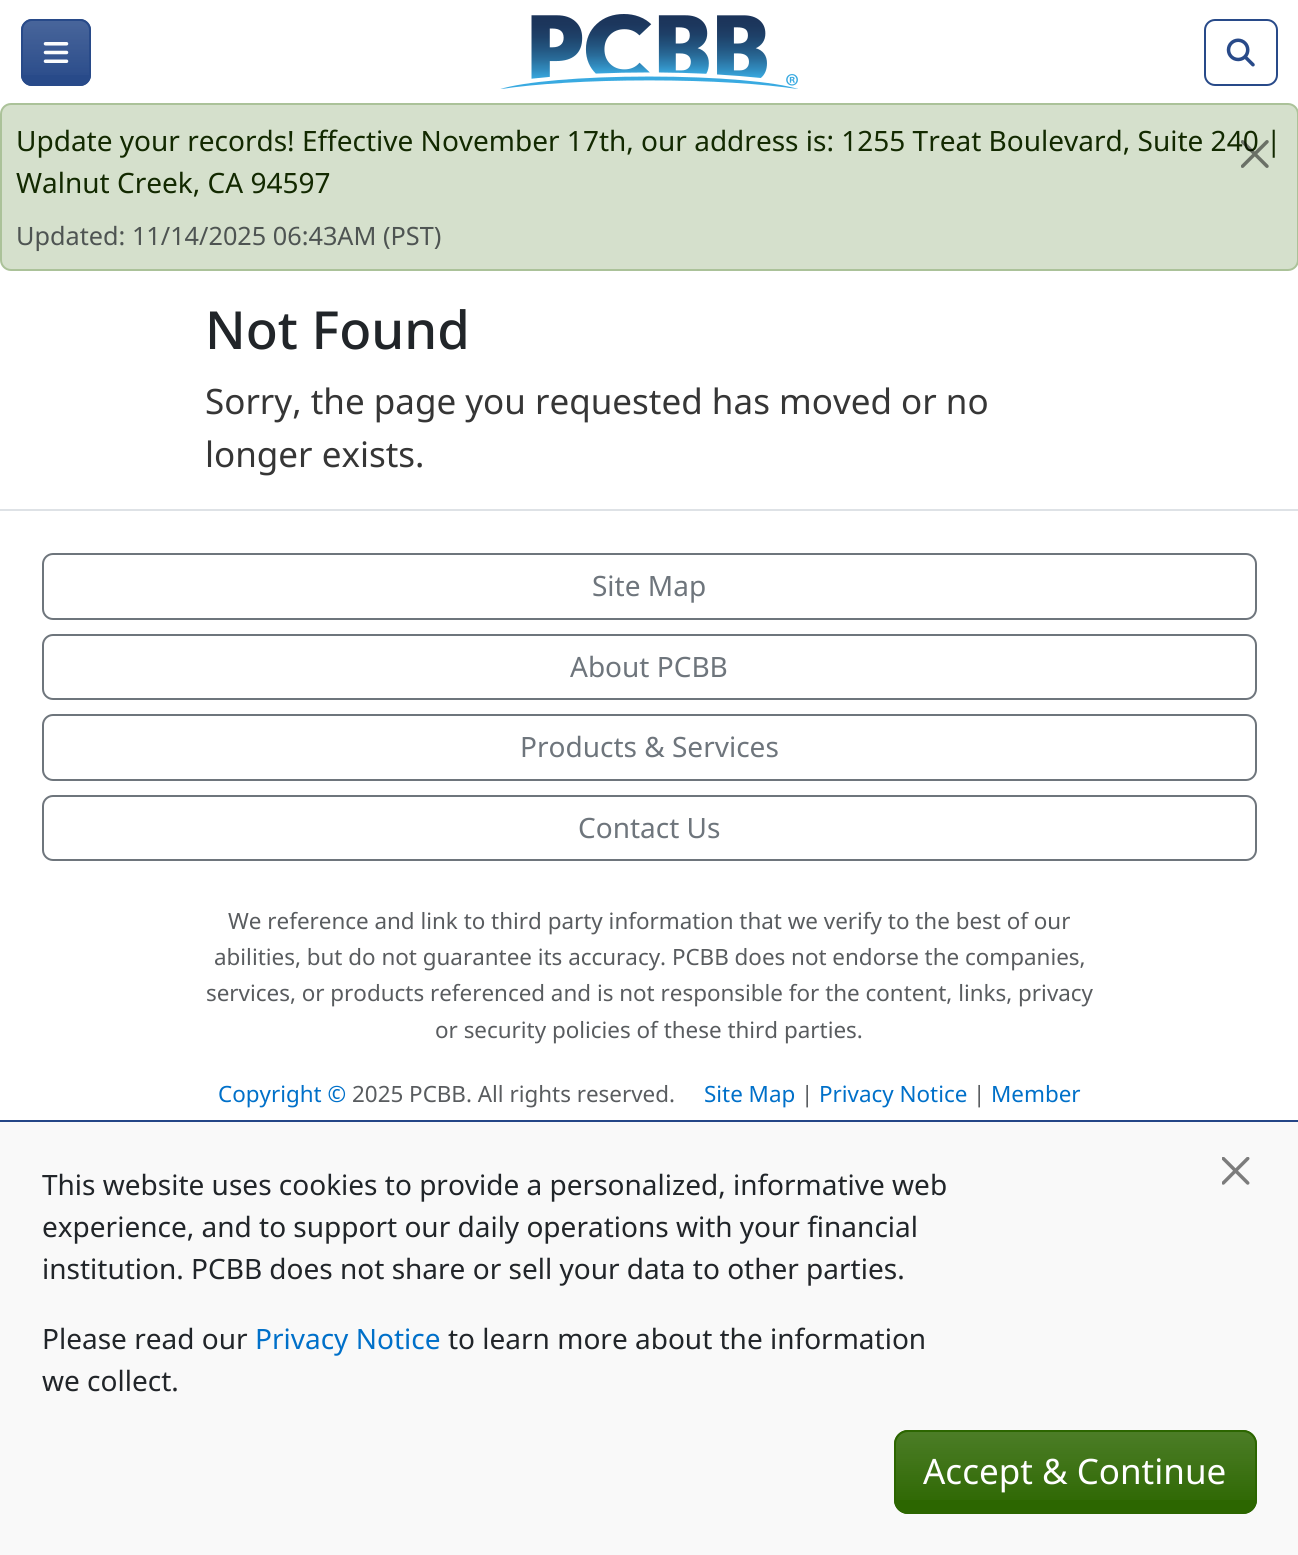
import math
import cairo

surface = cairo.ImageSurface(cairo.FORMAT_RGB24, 1298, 1555)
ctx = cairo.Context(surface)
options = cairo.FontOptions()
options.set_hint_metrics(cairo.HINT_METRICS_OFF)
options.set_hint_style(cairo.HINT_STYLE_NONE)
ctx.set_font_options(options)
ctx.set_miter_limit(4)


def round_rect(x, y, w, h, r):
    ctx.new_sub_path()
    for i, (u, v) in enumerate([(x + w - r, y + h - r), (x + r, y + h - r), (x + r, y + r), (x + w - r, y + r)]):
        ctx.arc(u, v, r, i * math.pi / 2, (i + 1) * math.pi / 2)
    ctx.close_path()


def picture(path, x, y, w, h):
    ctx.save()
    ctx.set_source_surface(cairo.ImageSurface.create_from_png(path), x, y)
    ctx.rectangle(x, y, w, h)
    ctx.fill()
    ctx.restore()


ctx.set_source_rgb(1, 1, 1)
ctx.paint()
ctx.set_source_rgb(0.157, 0.29, 0.537)
round_rect(21, 19, 70, 67, 11)
ctx.fill()
ctx.save()
round_rect(21, 19, 70, 67, 11)
ctx.clip()
gradient = cairo.LinearGradient(56, 21, 56, 84)
gradient.add_color_stop_rgba(0, 1, 1, 1, 0.15)
gradient.add_color_stop_rgba(1, 1, 1, 1, 0)
ctx.set_source(gradient)
ctx.rectangle(21, 21, 70, 54)
ctx.fill()
ctx.restore()
round_rect(22, 20, 68, 65, 10)
ctx.stroke()
picture("img1.png", 43, 42, 26, 21)
picture("img2.png", 500, 14, 298, 75)
round_rect(1205, 20, 72, 65, 10)
ctx.stroke()
picture("img3.png", 1226, 38, 29, 29)
ctx.set_source_rgb(0.835, 0.878, 0.8)
round_rect(1, 104, 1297, 166, 10)
ctx.fill_preserve()
ctx.set_source_rgb(0.671, 0.761, 0.6)
ctx.stroke()
ctx.select_font_face("Noto Sans")
ctx.set_font_size(28)
ctx.set_source_rgb(0.071, 0.161, 0)
ctx.move_to(16, 151)
ctx.show_text("Update your records! Effective November 17th, our address is: 1255 Treat Boulevard, Suite 240 |")
picture("img4.png", 1241, 140, 28, 28)
ctx.move_to(16, 193)
ctx.show_text("Walnut Creek, CA 94597")
ctx.set_font_size(25.25)
ctx.set_source_rgb(0.306, 0.329, 0.322)
ctx.move_to(16, 245)
ctx.show_text("Updated: 11/14/2025 06:43AM (PST)")
ctx.select_font_face("Noto Sans Medium")
ctx.set_font_size(52.5)
ctx.set_source_rgb(0.129, 0.145, 0.161)
ctx.move_to(205, 349)
ctx.show_text("Not Found")
ctx.select_font_face("Noto Sans")
ctx.set_font_size(35)
ctx.set_source_rgb(0.212, 0.212, 0.212)
ctx.move_to(205, 414)
ctx.show_text("Sorry, the page you requested has moved or no")
ctx.move_to(205, 467)
ctx.show_text("longer exists.")
ctx.set_source_rgb(0.871, 0.886, 0.902)
ctx.rectangle(0, 509, 1298, 2)
ctx.fill()
round_rect(43, 554, 1213, 65, 10)
ctx.set_source_rgb(0.431, 0.459, 0.486)
ctx.stroke()
ctx.set_font_size(28)
ctx.move_to(592, 596)
ctx.show_text("Site Map")
round_rect(43, 635, 1213, 64, 10)
ctx.stroke()
ctx.move_to(570, 677)
ctx.show_text("About PCBB")
round_rect(43, 715, 1213, 65, 10)
ctx.stroke()
ctx.move_to(520, 757)
ctx.show_text("Products & Services")
round_rect(43, 796, 1213, 64, 10)
ctx.stroke()
ctx.move_to(578, 838)
ctx.show_text("Contact Us")
ctx.set_font_size(22.4)
ctx.set_source_rgb(0.349, 0.361, 0.373)
ctx.move_to(228, 929)
ctx.show_text("We reference and link to third party information that we verify to the best of our")
ctx.move_to(214, 965)
ctx.show_text("abilities, but do not guarantee its accuracy. PCBB does not endorse the companies,")
ctx.move_to(206, 1001)
ctx.show_text("services, or products referenced and is not responsible for the content, links, privacy")
ctx.move_to(435, 1038)
ctx.show_text("or security policies of these third parties.")
ctx.set_source_rgb(0, 0.439, 0.788)
ctx.move_to(218, 1102)
ctx.show_text("Copyright ©")
ctx.set_source_rgb(0.349, 0.361, 0.373)
ctx.move_to(352, 1102)
ctx.show_text("2025 PCBB. All rights reserved.")
ctx.set_source_rgb(0, 0.439, 0.788)
ctx.move_to(704, 1102)
ctx.show_text("Site Map")
ctx.set_source_rgb(0.349, 0.361, 0.373)
ctx.move_to(801, 1102)
ctx.show_text("|")
ctx.set_source_rgb(0, 0.439, 0.788)
ctx.move_to(819, 1102)
ctx.show_text("Privacy Notice")
ctx.set_source_rgb(0.349, 0.361, 0.373)
ctx.move_to(973, 1102)
ctx.show_text("|")
ctx.set_source_rgb(0, 0.439, 0.788)
ctx.move_to(991, 1102)
ctx.show_text("Member")
ctx.set_source_rgb(0.976, 0.976, 0.976)
ctx.rectangle(0, 1122, 1298, 433)
ctx.fill()
ctx.set_source_rgb(0.141, 0.275, 0.529)
ctx.rectangle(0, 1120, 1298, 2)
ctx.fill()
ctx.set_font_size(28)
ctx.set_source_rgb(0.129, 0.145, 0.161)
ctx.move_to(42, 1195)
ctx.show_text("This website uses cookies to provide a personalized, informative web")
ctx.move_to(42, 1237)
ctx.show_text("experience, and to support our daily operations with your financial")
ctx.move_to(42, 1279)
ctx.show_text("institution. PCBB does not share or sell your data to other parties.")
ctx.move_to(42, 1349)
ctx.show_text("Please read our")
ctx.set_source_rgb(0, 0.439, 0.788)
ctx.move_to(255, 1349)
ctx.show_text("Privacy Notice")
ctx.set_source_rgb(0.129, 0.145, 0.161)
ctx.move_to(448, 1349)
ctx.show_text("to learn more about the information")
ctx.move_to(42, 1391)
ctx.show_text("we collect.")
picture("img5.png", 1222, 1157, 28, 28)
ctx.set_source_rgb(0.173, 0.4, 0)
round_rect(894, 1430, 363, 84, 14)
ctx.fill()
ctx.save()
round_rect(894, 1430, 363, 84, 14)
ctx.clip()
gradient = cairo.LinearGradient(1075, 1432, 1075, 1512)
gradient.add_color_stop_rgba(0, 1, 1, 1, 0.15)
gradient.add_color_stop_rgba(1, 1, 1, 1, 0)
ctx.set_source(gradient)
ctx.rectangle(894, 1432, 363, 68)
ctx.fill()
ctx.restore()
round_rect(895, 1431, 361, 82, 13)
ctx.stroke()
ctx.set_font_size(35)
ctx.set_source_rgb(1, 1, 1)
ctx.move_to(923, 1484)
ctx.show_text("Accept & Continue")
surface.write_to_png("page.png")
